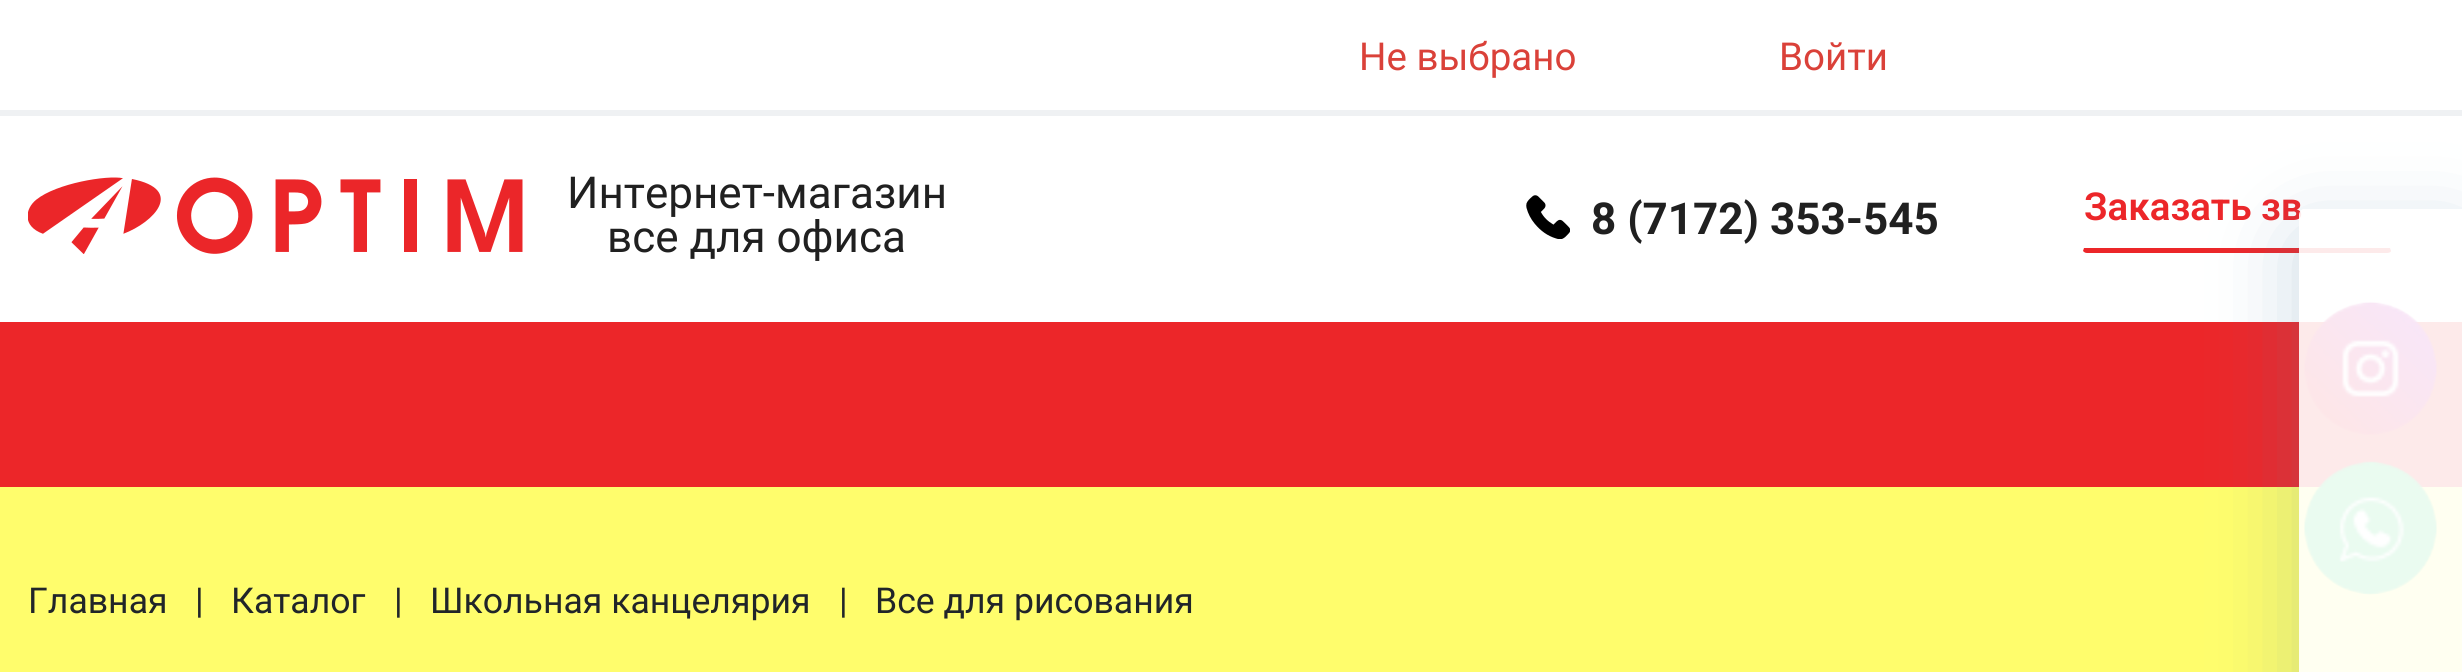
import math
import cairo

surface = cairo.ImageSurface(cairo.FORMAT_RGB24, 2462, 672)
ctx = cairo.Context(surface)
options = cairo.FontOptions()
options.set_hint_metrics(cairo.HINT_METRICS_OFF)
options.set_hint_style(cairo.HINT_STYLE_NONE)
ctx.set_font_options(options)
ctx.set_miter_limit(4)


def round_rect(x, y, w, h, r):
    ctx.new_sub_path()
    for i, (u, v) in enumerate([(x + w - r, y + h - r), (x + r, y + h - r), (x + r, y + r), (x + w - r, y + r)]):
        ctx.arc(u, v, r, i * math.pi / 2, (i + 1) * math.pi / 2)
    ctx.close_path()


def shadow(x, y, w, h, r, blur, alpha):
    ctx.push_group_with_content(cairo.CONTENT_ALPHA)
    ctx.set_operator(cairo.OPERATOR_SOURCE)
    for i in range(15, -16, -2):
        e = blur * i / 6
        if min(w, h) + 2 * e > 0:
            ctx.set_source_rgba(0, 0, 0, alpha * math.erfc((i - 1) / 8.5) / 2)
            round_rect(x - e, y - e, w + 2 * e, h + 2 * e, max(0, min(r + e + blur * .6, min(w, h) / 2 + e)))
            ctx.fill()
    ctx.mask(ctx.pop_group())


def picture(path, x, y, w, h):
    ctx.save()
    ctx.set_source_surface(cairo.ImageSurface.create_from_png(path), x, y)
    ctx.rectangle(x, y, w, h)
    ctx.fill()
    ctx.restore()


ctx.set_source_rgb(1, 0.992, 0.424)
ctx.paint()
ctx.set_source_rgb(1, 1, 1)
ctx.rectangle(0, 0, 2462, 110)
ctx.fill()
ctx.select_font_face("Roboto")
ctx.set_font_size(38.5)
ctx.set_source_rgb(0.855, 0.255, 0.224)
ctx.move_to(1359, 70)
ctx.show_text("Не выбрано")
ctx.move_to(1779, 70)
ctx.show_text("Войти")
ctx.set_source_rgb(0.937, 0.945, 0.953)
ctx.rectangle(0, 110, 2462, 6)
ctx.fill()
ctx.set_source_rgb(1, 1, 1)
ctx.rectangle(0, 116, 2462, 206)
ctx.fill()
picture("img1.png", 28, 177, 495, 77)
ctx.set_font_size(44)
ctx.set_source_rgb(0.125, 0.125, 0.125)
ctx.move_to(567, 208)
ctx.show_text("Интернет-магазин")
ctx.move_to(607, 252)
ctx.show_text("все для офиса")
picture("img2.png", 1526, 195, 44, 44)
ctx.select_font_face("Roboto", cairo.FONT_SLANT_NORMAL, cairo.FONT_WEIGHT_BOLD)
ctx.move_to(1591, 234)
ctx.show_text("8 (7172) 353-545")
ctx.set_source_rgb(0.922, 0.149, 0.161)
ctx.new_path()
ctx.move_to(2087, 253)
ctx.line_to(2387, 253)
ctx.curve_to(2389, 253, 2391, 252, 2391, 251)
ctx.line_to(2390, 248)
ctx.line_to(2084, 248)
ctx.line_to(2083, 251)
ctx.curve_to(2084, 252, 2085, 253, 2087, 253)
ctx.close_path()
ctx.fill()
ctx.select_font_face("Roboto SemiBold")
ctx.set_font_size(38.5)
ctx.move_to(2084, 220)
ctx.show_text("Заказать зв")
ctx.rectangle(0, 322, 2462, 165)
ctx.fill()
ctx.select_font_face("Roboto")
ctx.set_font_size(35.6)
ctx.set_source_rgb(0.129, 0.145, 0.161)
ctx.move_to(28, 613)
ctx.show_text("Главная")
ctx.move_to(195, 613)
ctx.show_text("|")
ctx.move_to(231, 613)
ctx.show_text("Каталог")
ctx.move_to(394, 613)
ctx.show_text("|")
ctx.move_to(430, 613)
ctx.show_text("Школьная канцелярия")
ctx.move_to(839, 613)
ctx.show_text("|")
ctx.move_to(875, 613)
ctx.show_text("Все для рисования")
picture("img3.png", 2304, 301, 133, 134)
picture("img4.png", 2304, 461, 133, 134)
ctx.save()
ctx.set_fill_rule(cairo.FILL_RULE_EVEN_ODD)
ctx.new_path()
ctx.move_to(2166, 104)
ctx.line_to(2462, 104)
ctx.line_to(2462, 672)
ctx.line_to(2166, 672)
ctx.close_path()
ctx.move_to(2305, 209)
ctx.line_to(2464, 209)
ctx.line_to(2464, 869)
ctx.line_to(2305, 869)
ctx.curve_to(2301.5, 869, 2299, 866.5, 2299, 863)
ctx.line_to(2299, 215)
ctx.curve_to(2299, 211.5, 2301.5, 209, 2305, 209)
ctx.close_path()
ctx.clip()
ctx.set_source_rgb(0.329, 0.522, 0.663)
shadow(2299, 237, 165, 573, 6, 44, 0.3)
ctx.restore()
ctx.set_source_rgba(1, 1, 1, 0.9)
ctx.new_path()
ctx.move_to(2305, 209)
ctx.line_to(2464, 209)
ctx.line_to(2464, 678)
ctx.line_to(2305, 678)
ctx.curve_to(2301.5, 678, 2299, 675.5, 2299, 672)
ctx.line_to(2299, 215)
ctx.curve_to(2299, 211.5, 2301.5, 209, 2305, 209)
ctx.close_path()
ctx.fill()
surface.write_to_png("page.png")
